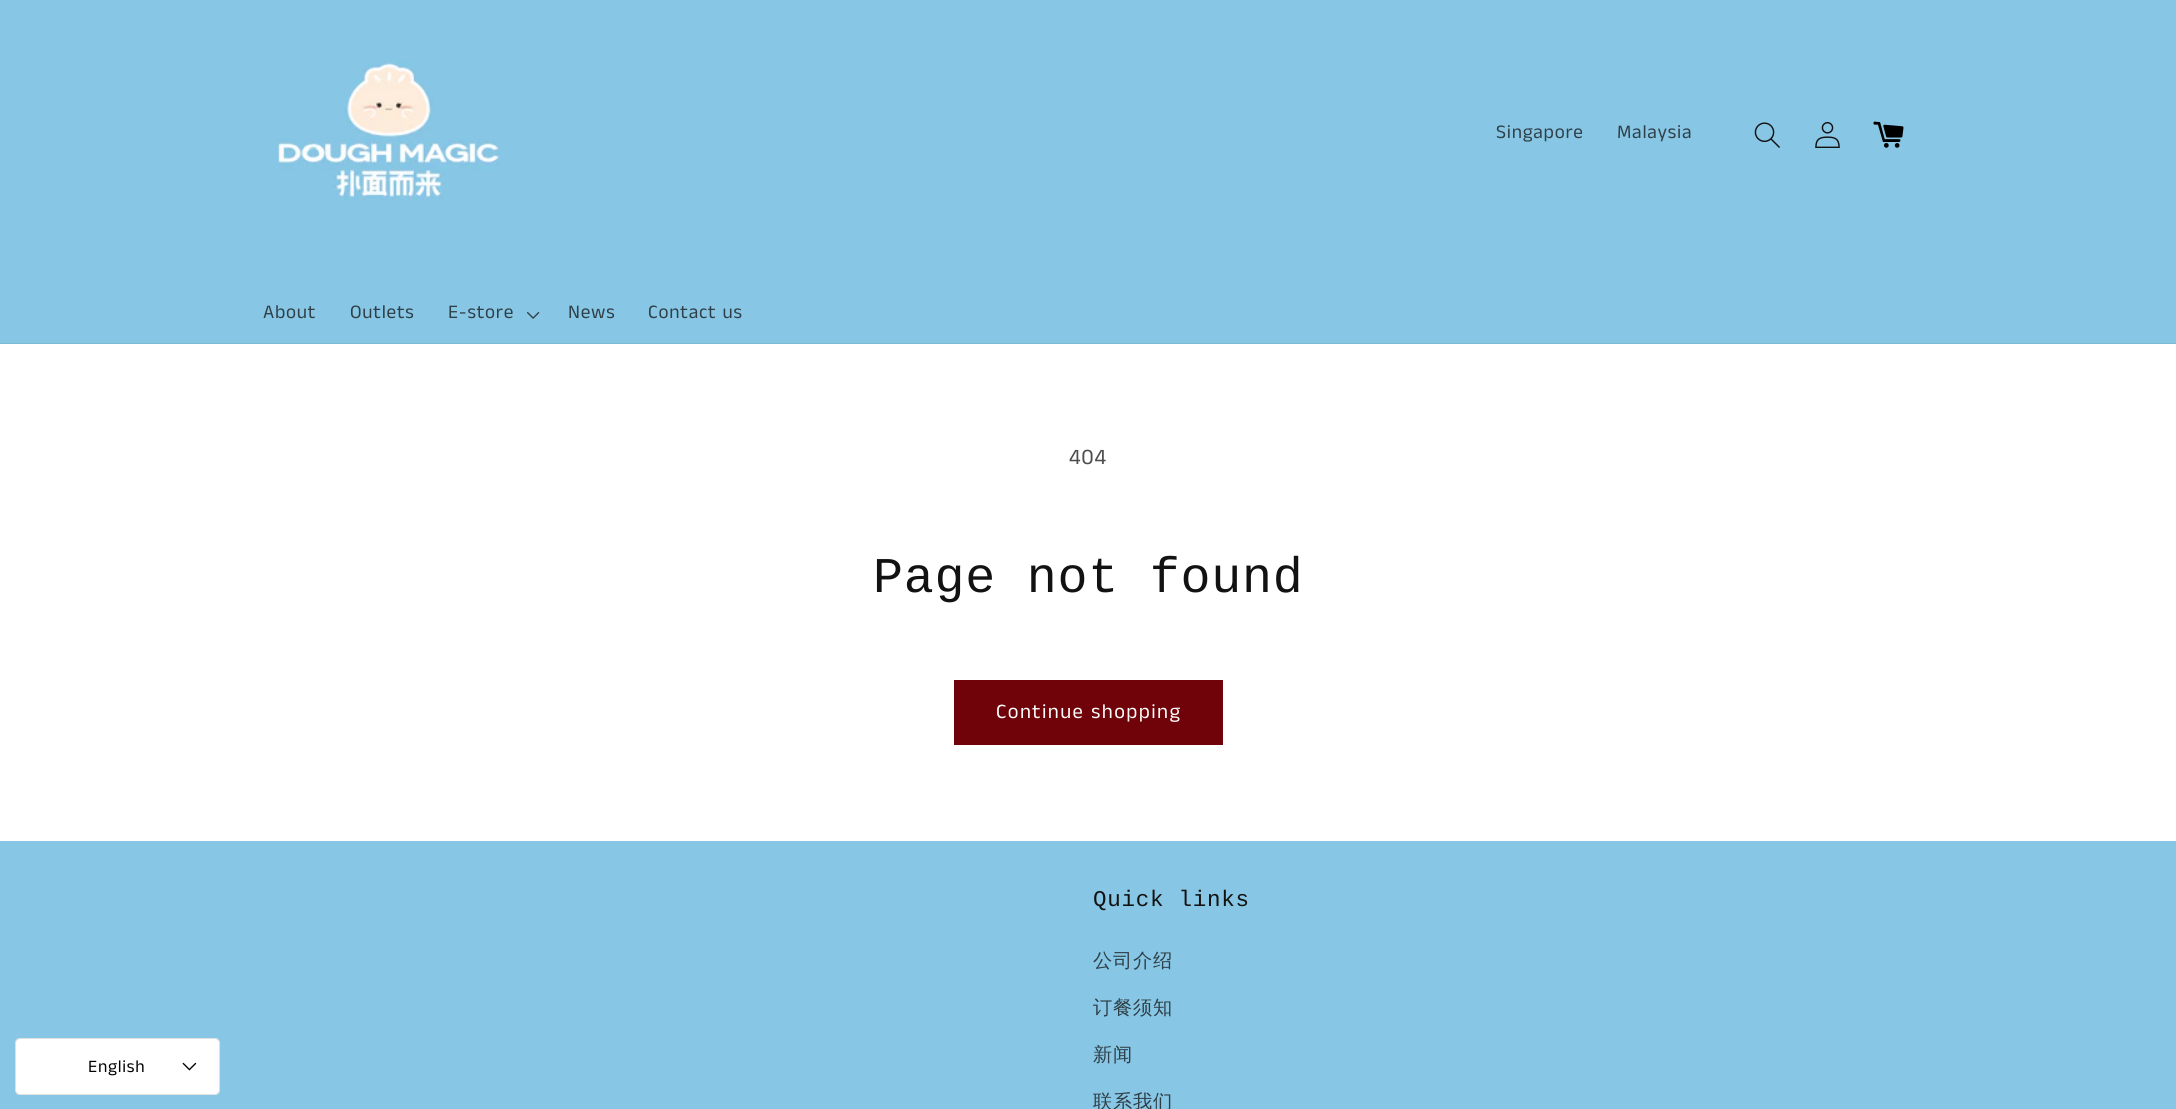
import math
import cairo

surface = cairo.ImageSurface(cairo.FORMAT_RGB24, 2176, 1109)
ctx = cairo.Context(surface)
options = cairo.FontOptions()
options.set_hint_metrics(cairo.HINT_METRICS_OFF)
options.set_hint_style(cairo.HINT_STYLE_NONE)
ctx.set_font_options(options)
ctx.set_miter_limit(4)


def spaced_text(x, y, s, letter, word):
    ctx.move_to(x, y)
    for ch in s:
        ctx.show_text(ch)
        ctx.rel_move_to(letter + word * (ch == ' '), 0)


def round_rect(x, y, w, h, r):
    ctx.new_sub_path()
    for i, (u, v) in enumerate([(x + w - r, y + h - r), (x + r, y + h - r), (x + r, y + r), (x + w - r, y + r)]):
        ctx.arc(u, v, r, i * math.pi / 2, (i + 1) * math.pi / 2)
    ctx.close_path()


def picture(path, x, y, w, h):
    ctx.save()
    ctx.set_source_surface(cairo.ImageSurface.create_from_png(path), x, y)
    ctx.rectangle(x, y, w, h)
    ctx.fill()
    ctx.restore()


ctx.set_source_rgb(1, 1, 1)
ctx.paint()
ctx.set_source_rgb(0.529, 0.78, 0.898)
ctx.rectangle(0, 0, 2176, 343)
ctx.fill()
ctx.set_source_rgb(0.494, 0.725, 0.831)
ctx.rectangle(0, 343, 2176, 1)
ctx.fill()
picture("img1.png", 276, 60, 224, 140)
ctx.select_font_face("Anek Tamil")
ctx.set_font_size(19.25)
ctx.set_source_rgb(0.184, 0.247, 0.278)
spaced_text(1496, 138, "Singapore", 0.75, 0)
spaced_text(1617, 138, "Malaysia", 0.75, 0)
picture("img2.png", 1754, 122, 26, 26)
picture("img3.png", 1815, 122, 25, 26)
picture("img4.png", 1873, 121, 31, 27)
spaced_text(263, 318, "About", 0.75, 0)
spaced_text(350, 318, "Outlets", 0.75, 0)
spaced_text(448, 318, "E-store", 0.75, 0)
picture("img5.png", 527, 312, 13, 7)
spaced_text(568, 318, "News", 0.75, 0)
spaced_text(648, 318, "Contact us", 0.75, 0)
ctx.set_font_size(22)
ctx.set_source_rgb(0.302, 0.302, 0.302)
spaced_text(1069, 464, "404", 0.75, 0)
ctx.select_font_face("Liberation Mono")
ctx.set_font_size(50)
ctx.set_source_rgb(0.071, 0.071, 0.071)
spaced_text(873, 592, "Page not found", 0.75, 0)
ctx.set_source_rgb(0.439, 0.008, 0.039)
ctx.rectangle(954, 680, 269, 65)
ctx.fill()
ctx.select_font_face("Anek Tamil")
ctx.set_font_size(20.6)
ctx.set_source_rgb(1, 1, 1)
spaced_text(996, 718, "Continue shopping", 1.4, 0)
ctx.set_source_rgb(0.529, 0.78, 0.898)
ctx.rectangle(0, 841, 2176, 268)
ctx.fill()
ctx.set_source_rgb(1, 1, 1)
round_rect(15.5, 1038.5, 204, 56, 4.5)
ctx.fill_preserve()
ctx.set_source_rgb(0.878, 0.878, 0.878)
ctx.set_line_width(1)
ctx.stroke()
ctx.set_font_size(17.5)
ctx.set_source_rgb(0, 0, 0)
spaced_text(88, 1072, "English", 0.75, 0)
picture("img6.png", 182, 1062, 15, 9)
ctx.select_font_face("Liberation Mono")
ctx.set_font_size(22.5)
ctx.set_source_rgb(0.071, 0.071, 0.071)
spaced_text(1093, 906, "Quick links", 0.75, 0)
ctx.select_font_face("WenQuanYi Zen Hei Medium")
ctx.set_font_size(19.25)
ctx.set_source_rgb(0.184, 0.247, 0.278)
spaced_text(1093, 967, "公司介绍", 0.75, 0)
spaced_text(1093, 1014, "订餐须知", 0.75, 0)
spaced_text(1093, 1061, "新闻", 0.75, 0)
spaced_text(1093, 1108, "联系我们", 0.75, 0)
surface.write_to_png("page.png")
